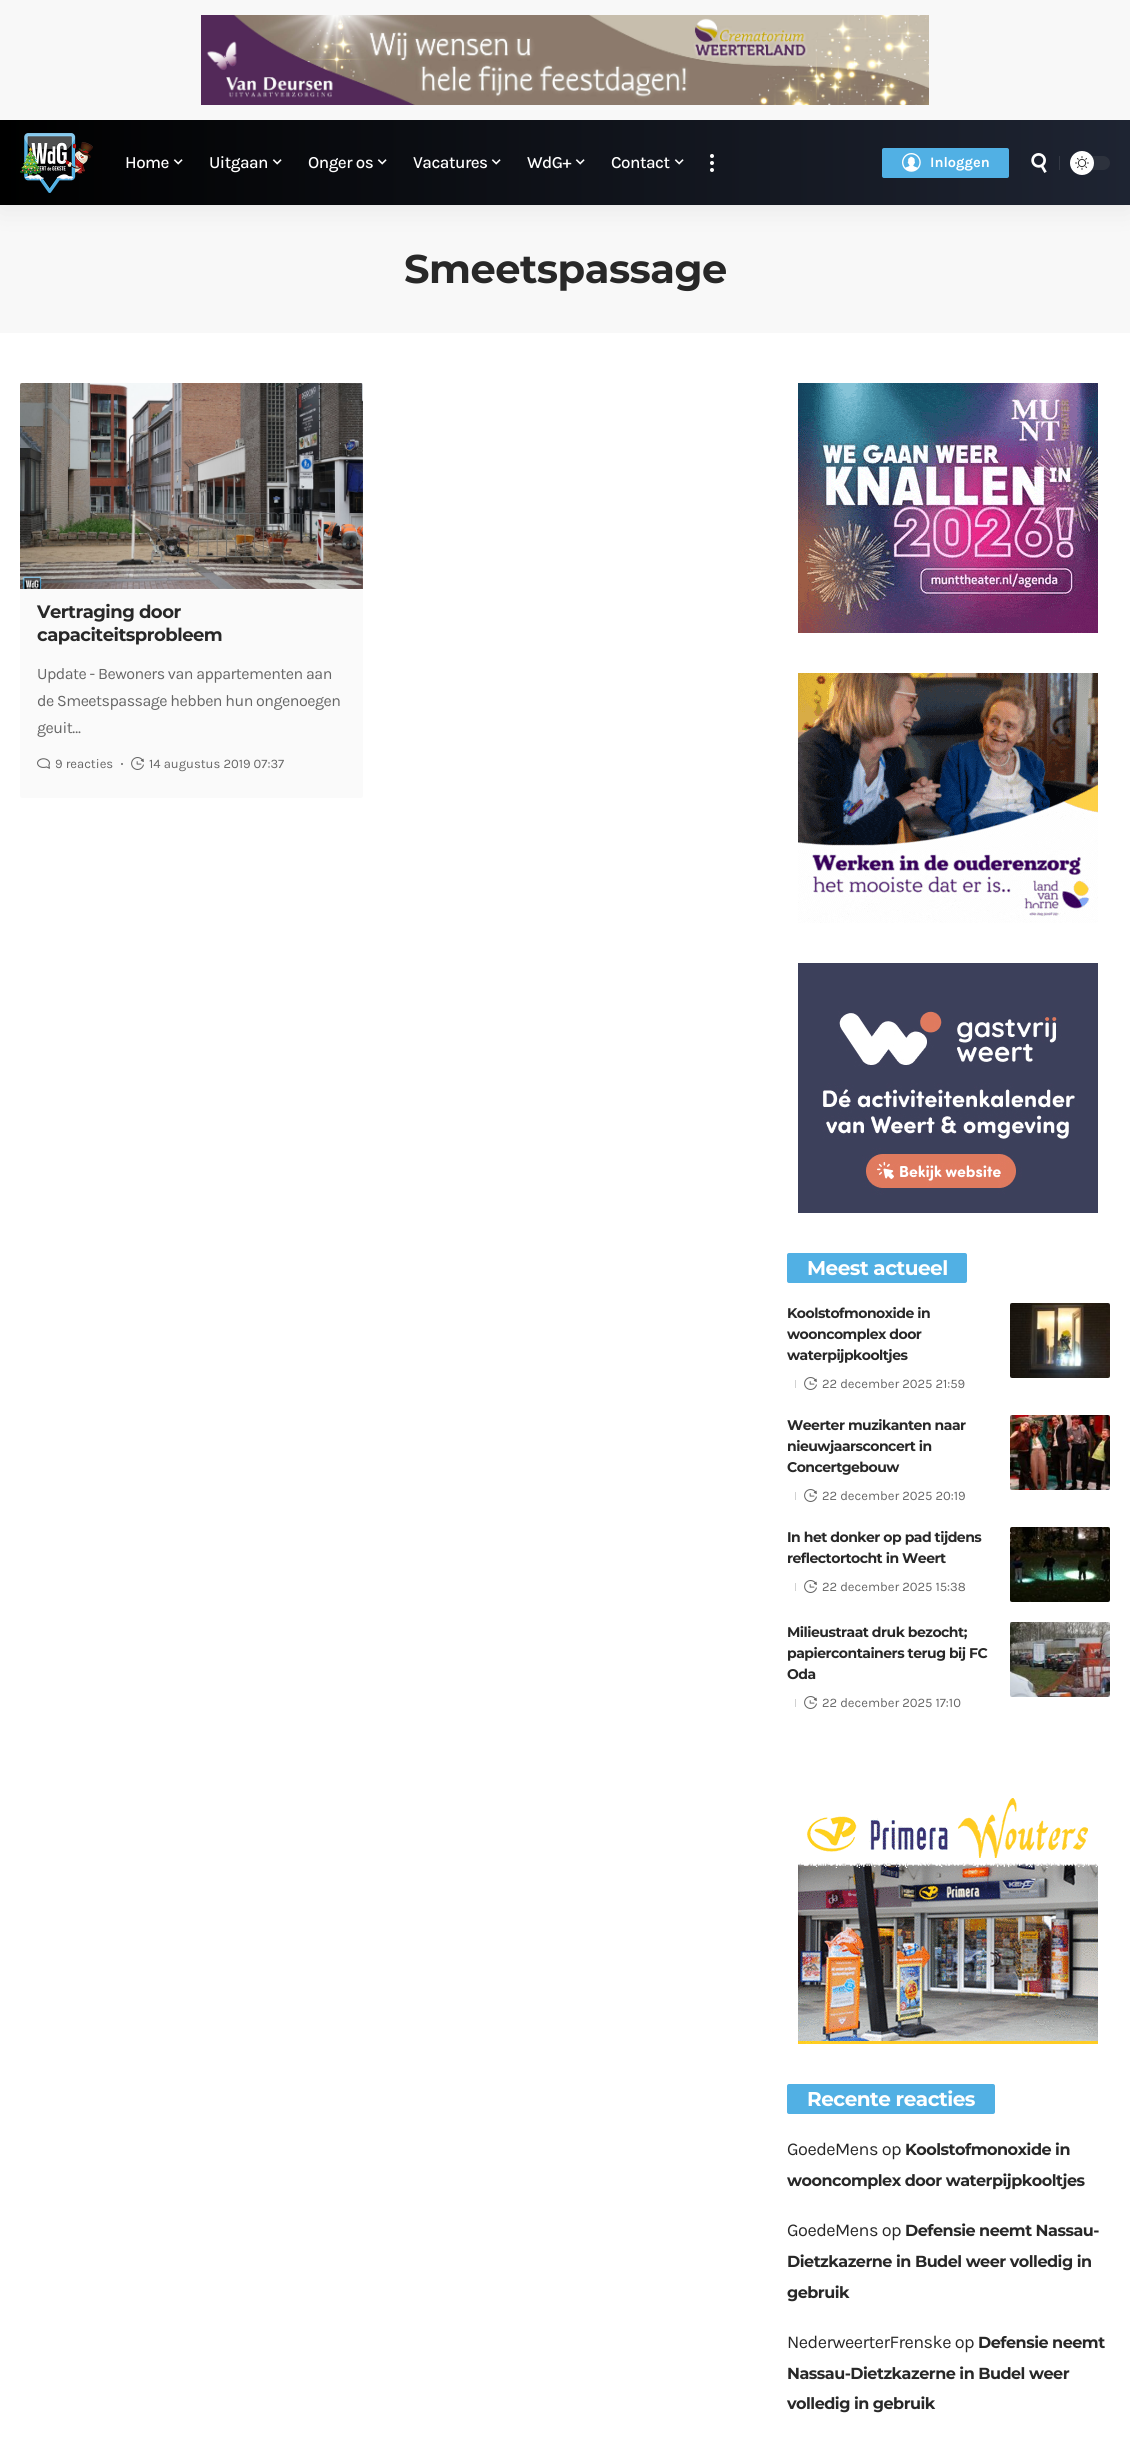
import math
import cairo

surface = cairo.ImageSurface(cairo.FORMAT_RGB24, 1130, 2446)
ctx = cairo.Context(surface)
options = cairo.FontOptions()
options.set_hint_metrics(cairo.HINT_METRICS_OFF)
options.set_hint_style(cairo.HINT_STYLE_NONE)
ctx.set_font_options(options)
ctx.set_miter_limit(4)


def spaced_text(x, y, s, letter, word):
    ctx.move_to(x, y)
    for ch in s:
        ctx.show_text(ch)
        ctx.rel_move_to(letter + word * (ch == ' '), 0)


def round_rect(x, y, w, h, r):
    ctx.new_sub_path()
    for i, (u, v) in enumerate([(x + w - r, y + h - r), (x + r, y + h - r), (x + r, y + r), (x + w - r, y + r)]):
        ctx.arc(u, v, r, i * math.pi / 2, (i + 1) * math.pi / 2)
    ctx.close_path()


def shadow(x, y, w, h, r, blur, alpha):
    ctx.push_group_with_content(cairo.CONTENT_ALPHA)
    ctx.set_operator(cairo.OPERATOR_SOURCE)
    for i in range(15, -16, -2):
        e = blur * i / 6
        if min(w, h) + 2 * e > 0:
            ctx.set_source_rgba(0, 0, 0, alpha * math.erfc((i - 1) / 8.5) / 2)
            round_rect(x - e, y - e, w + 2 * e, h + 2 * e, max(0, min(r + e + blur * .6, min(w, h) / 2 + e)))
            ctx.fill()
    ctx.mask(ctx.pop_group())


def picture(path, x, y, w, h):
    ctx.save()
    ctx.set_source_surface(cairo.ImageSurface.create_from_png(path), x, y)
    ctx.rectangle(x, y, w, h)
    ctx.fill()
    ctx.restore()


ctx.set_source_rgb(1, 1, 1)
ctx.paint()
ctx.set_source_rgb(0.969, 0.969, 0.969)
ctx.rectangle(0, 0, 1130, 120)
ctx.fill()
picture("img1.png", 201, 15, 728, 90)
ctx.rectangle(0, 205, 1130, 128)
ctx.fill()
ctx.save()
ctx.rectangle(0, 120, 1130, 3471)
ctx.clip()
ctx.set_source_rgb(0, 0, 0)
shadow(0, 124, 1130, 85, 0, 15, 0.07)
ctx.restore()
gradient = cairo.LinearGradient(0, 163, 1130, 162)
gradient.add_color_stop_rgba(0, 0, 0, 0, 1)
gradient.add_color_stop_rgba(1, 0.118, 0.141, 0.196, 1)
ctx.set_source(gradient)
ctx.rectangle(0, 120, 1130, 85)
ctx.fill()
picture("img2.png", 20, 133, 73, 60)
ctx.select_font_face("Karla Medium")
ctx.set_font_size(17)
ctx.set_source_rgb(1, 1, 1)
spaced_text(125, 168, "Home", -0.5, 0)
picture("img3.png", 173, 159, 10, 6)
spaced_text(209, 168, "Uitgaan", -0.5, 0)
picture("img4.png", 272, 159, 10, 6)
spaced_text(308, 168, "Onger os", -0.5, 0)
picture("img5.png", 377, 159, 10, 6)
spaced_text(413, 168, "Vacatures", -0.5, 0)
picture("img6.png", 491, 159, 10, 6)
spaced_text(527, 168, "WdG+", -0.5, 0)
picture("img7.png", 575, 159, 10, 6)
spaced_text(611, 168, "Contact", -0.5, 0)
picture("img8.png", 674, 159, 10, 6)
ctx.arc(712, 156, 2, 0, 2 * math.pi)
ctx.fill()
ctx.arc(712, 163, 2, 0, 2 * math.pi)
ctx.fill()
ctx.arc(712, 170, 2, 0, 2 * math.pi)
ctx.fill()
ctx.set_source_rgb(0.318, 0.69, 0.894)
round_rect(882, 148, 127, 30, 2)
ctx.fill()
picture("img9.png", 902, 153, 19, 19)
ctx.select_font_face("Karla", cairo.FONT_SLANT_NORMAL, cairo.FONT_WEIGHT_BOLD)
ctx.set_font_size(14.5)
ctx.set_source_rgb(1, 1, 1)
ctx.move_to(930, 167)
ctx.show_text("Inloggen")
picture("img10.png", 1031, 153, 16, 20)
ctx.set_source_rgb(0.2, 0.22, 0.267)
ctx.rectangle(1059, 156, 1, 14)
ctx.fill()
ctx.set_source_rgb(0.176, 0.196, 0.239)
round_rect(1070, 156, 40, 14, 7)
ctx.fill()
ctx.set_source_rgb(1, 1, 1)
ctx.arc(1082, 163, 12, 0, 2 * math.pi)
ctx.fill()
picture("img11.png", 1075, 156, 14, 14)
ctx.select_font_face("Montserrat", cairo.FONT_SLANT_NORMAL, cairo.FONT_WEIGHT_BOLD)
ctx.set_font_size(40)
ctx.set_source_rgb(0.157, 0.157, 0.157)
spaced_text(404, 283, "Smeetspassage", -0.5, 0)
ctx.set_source_rgb(0.98, 0.98, 0.98)
round_rect(20, 383, 343, 415, 2)
ctx.fill()
picture("img12.png", 20, 383, 343, 206)
ctx.set_font_size(18)
ctx.set_source_rgb(0.157, 0.157, 0.157)
spaced_text(37, 618, "Vertraging door", -0.5, 0)
spaced_text(37, 641, "capaciteitsprobleem", -0.5, 0)
ctx.select_font_face("Karla")
ctx.set_font_size(16)
ctx.set_source_rgb(0.4, 0.4, 0.4)
spaced_text(37, 679, "Update - Bewoners van appartementen aan", -0.5, 0)
spaced_text(37, 706, "de Smeetspassage hebben hun ongenoegen", -0.5, 0)
spaced_text(37, 733, "geuit…", -0.5, 0)
picture("img13.png", 37, 758, 13, 11)
ctx.set_font_size(13)
ctx.move_to(55, 768)
ctx.show_text("9 reacties")
ctx.new_path()
ctx.arc(122, 764, 1, 0, 2 * math.pi)
ctx.fill()
picture("img14.png", 131, 757, 13, 13)
ctx.move_to(149, 768)
ctx.show_text("14 augustus 2019 07:37")
picture("img15.png", 798, 383, 300, 250)
picture("img16.png", 798, 673, 300, 250)
picture("img17.png", 798, 963, 300, 250)
ctx.set_source_rgb(0.318, 0.69, 0.894)
round_rect(787, 1253, 180, 30, 2)
ctx.fill()
ctx.select_font_face("Montserrat", cairo.FONT_SLANT_NORMAL, cairo.FONT_WEIGHT_BOLD)
ctx.set_font_size(20)
ctx.set_source_rgb(1, 1, 1)
spaced_text(807, 1275, "Meest actueel", -0.5, 0)
ctx.set_font_size(14)
ctx.set_source_rgb(0.157, 0.157, 0.157)
spaced_text(787, 1318, "Koolstofmonoxide in", -0.5, 0)
spaced_text(787, 1339, "wooncomplex door", -0.5, 0)
spaced_text(787, 1360, "waterpijpkooltjes", -0.5, 0)
ctx.set_source_rgb(0.82, 0.82, 0.82)
ctx.rectangle(795, 1380, 1, 8)
ctx.fill()
picture("img18.png", 804, 1377, 13, 13)
ctx.select_font_face("Karla")
ctx.set_font_size(13)
ctx.set_source_rgb(0.4, 0.4, 0.4)
ctx.move_to(822, 1388)
ctx.show_text("22 december 2025 21:59")
picture("img19.png", 1010, 1303, 100, 75)
ctx.select_font_face("Montserrat", cairo.FONT_SLANT_NORMAL, cairo.FONT_WEIGHT_BOLD)
ctx.set_font_size(14)
ctx.set_source_rgb(0.157, 0.157, 0.157)
spaced_text(787, 1430, "Weerter muzikanten naar", -0.5, 0)
spaced_text(787, 1451, "nieuwjaarsconcert in", -0.5, 0)
spaced_text(787, 1472, "Concertgebouw", -0.5, 0)
ctx.set_source_rgb(0.82, 0.82, 0.82)
ctx.rectangle(795, 1492, 1, 8)
ctx.fill()
picture("img18.png", 804, 1489, 13, 13)
ctx.select_font_face("Karla")
ctx.set_font_size(13)
ctx.set_source_rgb(0.4, 0.4, 0.4)
ctx.move_to(822, 1500)
ctx.show_text("22 december 2025 20:19")
picture("img20.png", 1010, 1415, 100, 75)
ctx.select_font_face("Montserrat", cairo.FONT_SLANT_NORMAL, cairo.FONT_WEIGHT_BOLD)
ctx.set_font_size(14)
ctx.set_source_rgb(0.157, 0.157, 0.157)
spaced_text(787, 1542, "In het donker op pad tijdens", -0.5, 0)
spaced_text(787, 1563, "reflectortocht in Weert", -0.5, 0)
ctx.set_source_rgb(0.82, 0.82, 0.82)
ctx.rectangle(795, 1583, 1, 8)
ctx.fill()
picture("img18.png", 804, 1580, 13, 13)
ctx.select_font_face("Karla")
ctx.set_font_size(13)
ctx.set_source_rgb(0.4, 0.4, 0.4)
ctx.move_to(822, 1591)
ctx.show_text("22 december 2025 15:38")
picture("img21.png", 1010, 1527, 100, 75)
ctx.select_font_face("Montserrat", cairo.FONT_SLANT_NORMAL, cairo.FONT_WEIGHT_BOLD)
ctx.set_font_size(14)
ctx.set_source_rgb(0.157, 0.157, 0.157)
spaced_text(787, 1637, "Milieustraat druk bezocht;", -0.5, 0)
spaced_text(787, 1658, "papiercontainers terug bij FC", -0.5, 0)
spaced_text(787, 1679, "Oda", -0.5, 0)
ctx.set_source_rgb(0.82, 0.82, 0.82)
ctx.rectangle(795, 1699, 1, 8)
ctx.fill()
picture("img18.png", 804, 1696, 13, 13)
ctx.select_font_face("Karla")
ctx.set_font_size(13)
ctx.set_source_rgb(0.4, 0.4, 0.4)
ctx.move_to(822, 1707)
ctx.show_text("22 december 2025 17:10")
picture("img22.png", 1010, 1622, 100, 75)
picture("img23.png", 798, 1798, 300, 246)
ctx.set_source_rgb(0.318, 0.69, 0.894)
round_rect(787, 2084, 208, 30, 2)
ctx.fill()
ctx.select_font_face("Montserrat", cairo.FONT_SLANT_NORMAL, cairo.FONT_WEIGHT_BOLD)
ctx.set_font_size(20)
ctx.set_source_rgb(1, 1, 1)
spaced_text(807, 2106, "Recente reacties", -0.5, 0)
ctx.select_font_face("Karla")
ctx.set_font_size(18)
ctx.set_source_rgb(0.157, 0.157, 0.157)
spaced_text(787, 2155, "GoedeMens op", -0.5, 0)
ctx.select_font_face("Montserrat", cairo.FONT_SLANT_NORMAL, cairo.FONT_WEIGHT_BOLD)
ctx.set_font_size(16)
spaced_text(905, 2155, "Koolstofmonoxide in", -0.5, 0)
spaced_text(787, 2186, "wooncomplex door waterpijpkooltjes", -0.5, 0)
ctx.select_font_face("Karla")
ctx.set_font_size(18)
spaced_text(787, 2236, "GoedeMens op", -0.5, 0)
ctx.select_font_face("Montserrat", cairo.FONT_SLANT_NORMAL, cairo.FONT_WEIGHT_BOLD)
ctx.set_font_size(16)
spaced_text(905, 2236, "Defensie neemt Nassau-", -0.5, 0)
spaced_text(787, 2267, "Dietzkazerne in Budel weer volledig in", -0.5, 0)
spaced_text(787, 2298, "gebruik", -0.5, 0)
ctx.select_font_face("Karla")
ctx.set_font_size(18)
spaced_text(787, 2348, "NederweerterFrenske op", -0.5, 0)
ctx.select_font_face("Montserrat", cairo.FONT_SLANT_NORMAL, cairo.FONT_WEIGHT_BOLD)
ctx.set_font_size(16)
spaced_text(978, 2348, "Defensie neemt", -0.5, 0)
spaced_text(787, 2379, "Nassau-Dietzkazerne in Budel weer", -0.5, 0)
spaced_text(787, 2409, "volledig in gebruik", -0.5, 0)
surface.write_to_png("page.png")
